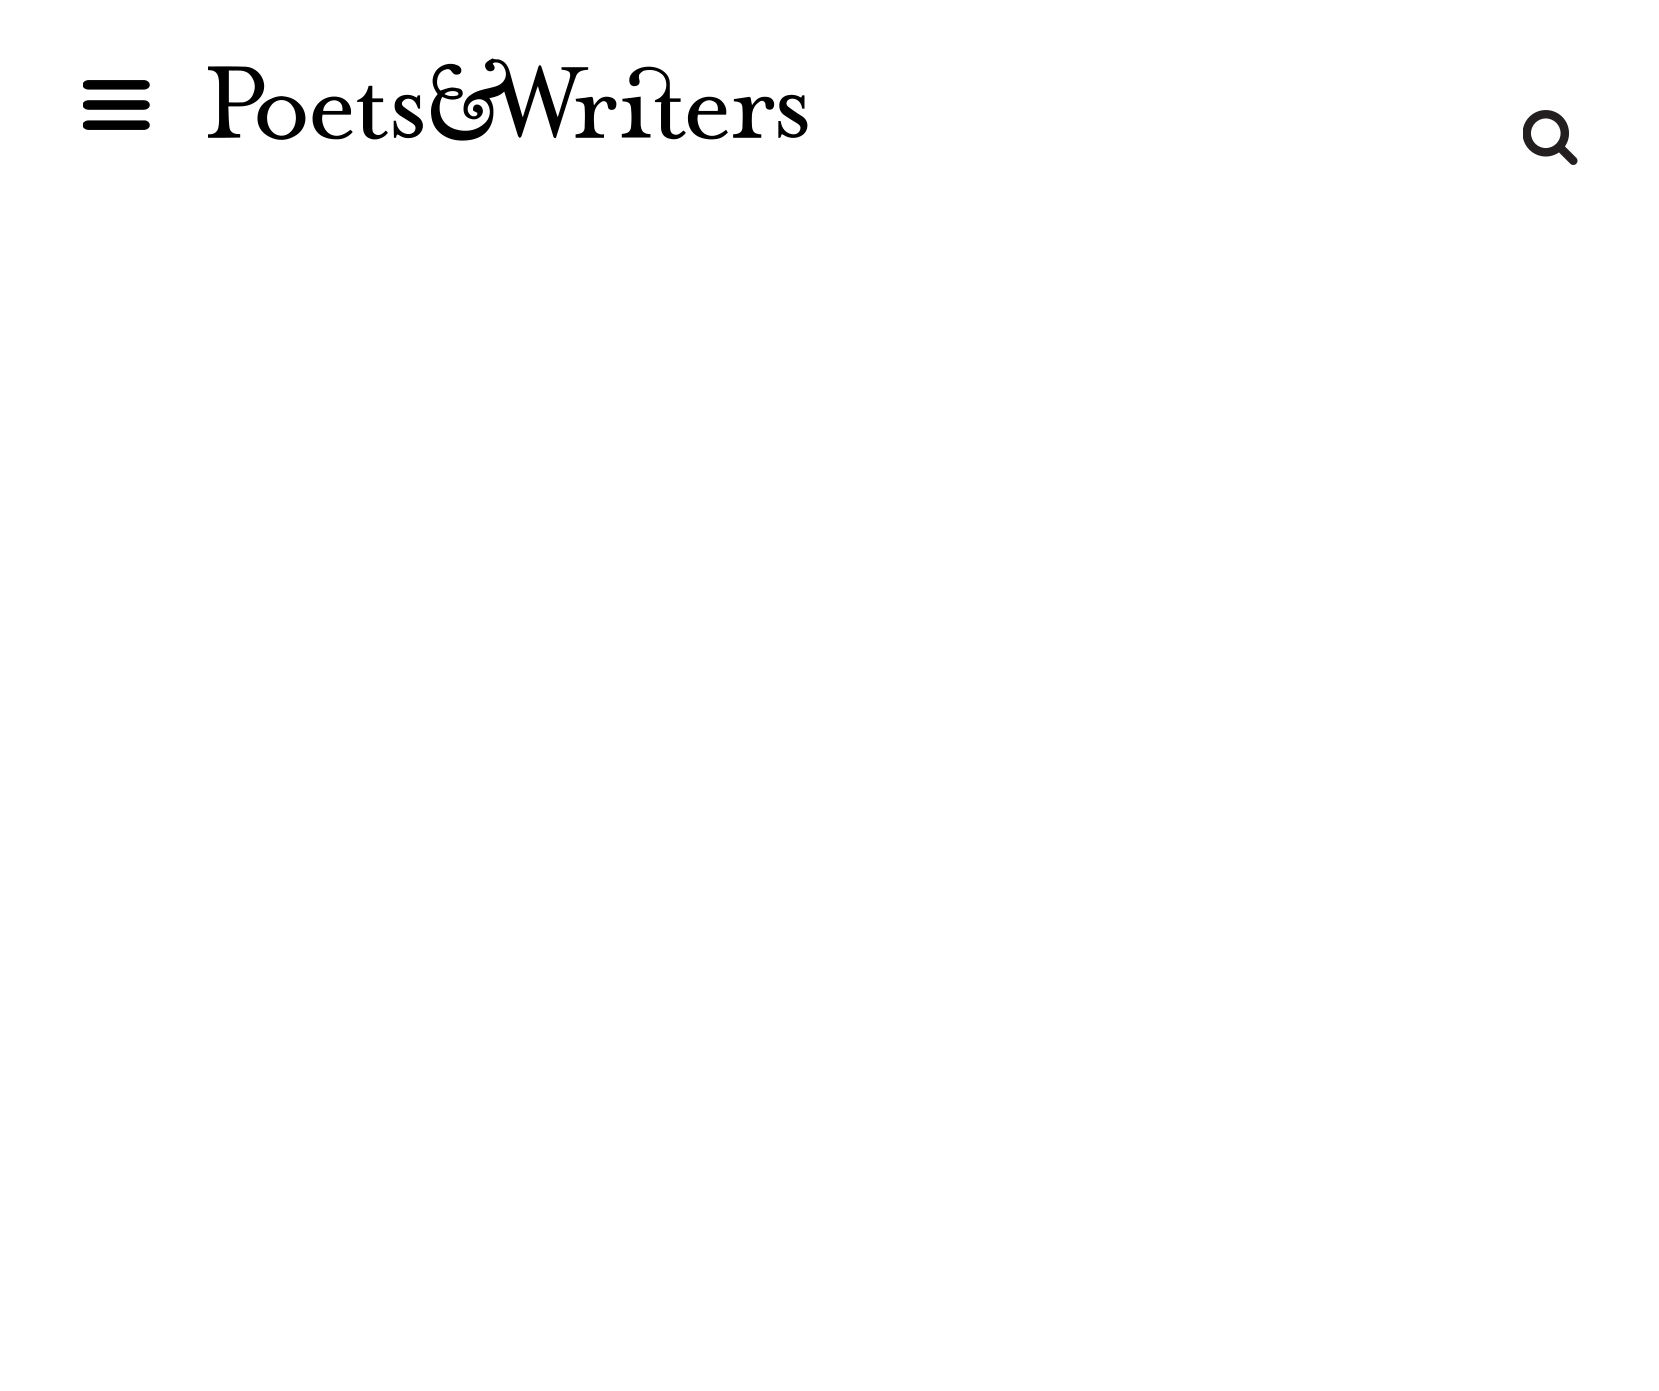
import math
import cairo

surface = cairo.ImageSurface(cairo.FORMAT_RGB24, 1659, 1391)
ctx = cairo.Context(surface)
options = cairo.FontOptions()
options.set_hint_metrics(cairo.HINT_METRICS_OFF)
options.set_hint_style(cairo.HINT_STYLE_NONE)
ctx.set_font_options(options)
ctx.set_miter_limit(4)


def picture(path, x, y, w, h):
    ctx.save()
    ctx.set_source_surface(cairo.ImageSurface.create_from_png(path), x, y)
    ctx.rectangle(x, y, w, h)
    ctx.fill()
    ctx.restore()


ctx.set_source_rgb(1, 1, 1)
ctx.paint()
picture("img1.png", 208, 58, 600, 83)
picture("img2.png", 83, 80, 67, 50)
picture("img3.png", 1523, 110, 55, 55)
surface.write_to_png("page.png")
